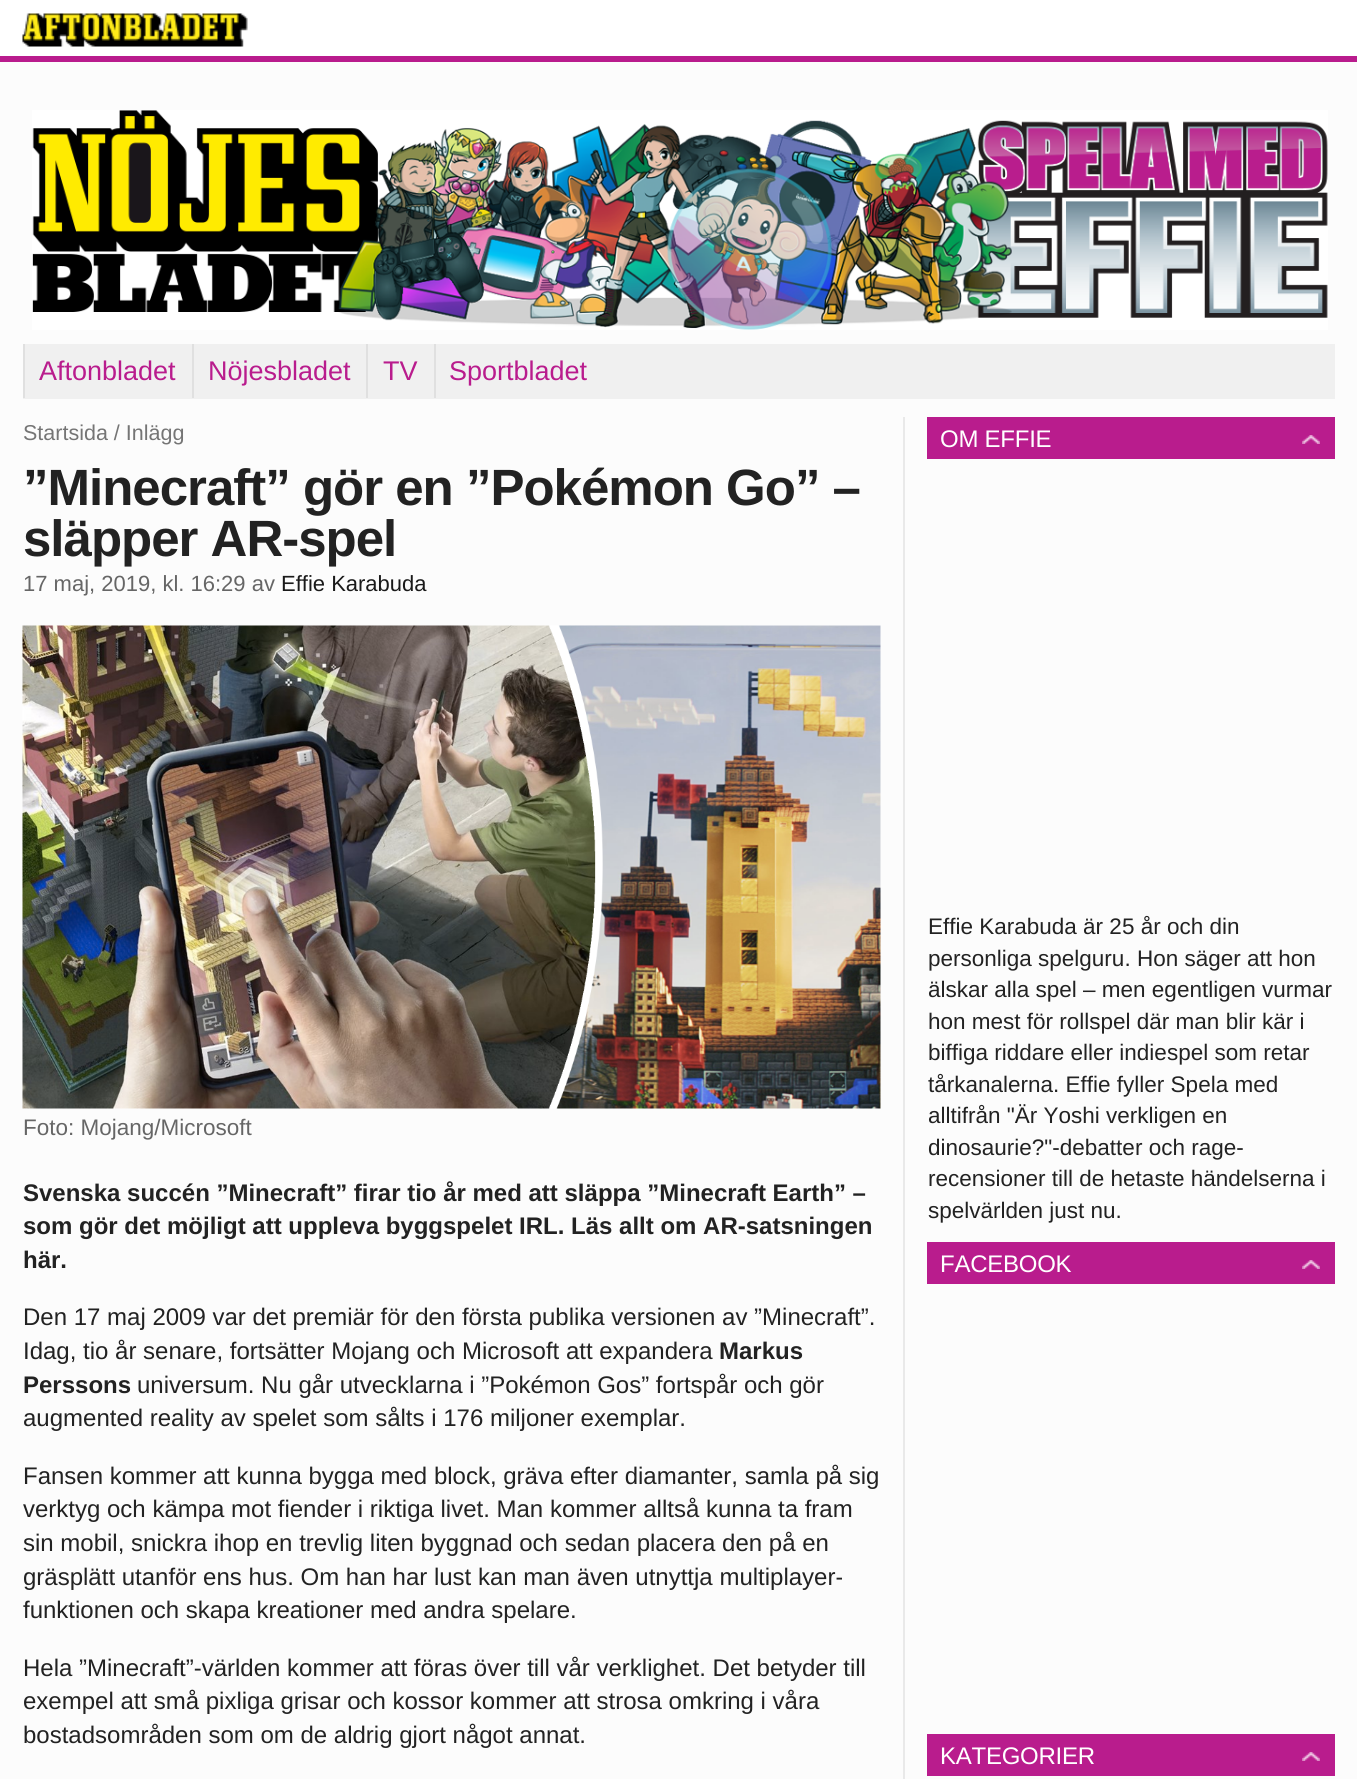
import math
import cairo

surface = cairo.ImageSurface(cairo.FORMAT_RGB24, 1357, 1779)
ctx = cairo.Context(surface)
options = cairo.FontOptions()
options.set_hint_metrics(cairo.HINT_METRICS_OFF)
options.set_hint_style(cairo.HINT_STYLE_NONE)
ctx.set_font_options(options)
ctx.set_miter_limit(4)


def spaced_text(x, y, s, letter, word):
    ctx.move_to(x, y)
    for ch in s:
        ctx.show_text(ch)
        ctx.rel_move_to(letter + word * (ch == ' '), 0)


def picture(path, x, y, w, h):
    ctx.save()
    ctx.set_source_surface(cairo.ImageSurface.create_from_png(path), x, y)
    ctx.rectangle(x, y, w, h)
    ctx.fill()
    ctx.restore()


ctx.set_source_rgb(0.988, 0.988, 0.988)
ctx.paint()
ctx.set_source_rgb(1, 1, 1)
ctx.rectangle(0, 0, 1357, 56)
ctx.fill()
ctx.set_source_rgb(0.725, 0.11, 0.553)
ctx.rectangle(0, 56, 1357, 6)
ctx.fill()
picture("img1.png", 22, 13, 226, 34)
picture("img2.png", 32, 110, 1296, 220)
ctx.set_source_rgb(0.941, 0.941, 0.941)
ctx.rectangle(23, 344, 1312, 55)
ctx.fill()
ctx.set_source_rgb(0.878, 0.878, 0.878)
ctx.rectangle(23, 344, 2, 54)
ctx.fill()
ctx.select_font_face("Liberation Sans")
ctx.set_font_size(27)
ctx.set_source_rgb(0.725, 0.11, 0.553)
ctx.move_to(39, 380)
ctx.show_text("Aftonbladet")
ctx.set_source_rgb(0.878, 0.878, 0.878)
ctx.rectangle(192, 344, 2, 54)
ctx.fill()
ctx.set_source_rgb(0.725, 0.11, 0.553)
ctx.move_to(208, 380)
ctx.show_text("Nöjesbladet")
ctx.set_source_rgb(0.878, 0.878, 0.878)
ctx.rectangle(366, 344, 2, 54)
ctx.fill()
ctx.set_source_rgb(0.725, 0.11, 0.553)
ctx.move_to(383, 380)
ctx.show_text("TV")
ctx.set_source_rgb(0.878, 0.878, 0.878)
ctx.rectangle(434, 344, 2, 54)
ctx.fill()
ctx.set_source_rgb(0.725, 0.11, 0.553)
ctx.move_to(449, 380)
ctx.show_text("Sportbladet")
ctx.set_source_rgb(0.914, 0.914, 0.914)
ctx.rectangle(903, 417, 2, 1362)
ctx.fill()
ctx.set_font_size(21.5)
ctx.set_source_rgb(0.459, 0.459, 0.459)
ctx.move_to(23, 440)
ctx.show_text("Startsida / Inlägg")
ctx.select_font_face("Liberation Sans", cairo.FONT_SLANT_NORMAL, cairo.FONT_WEIGHT_BOLD)
ctx.set_font_size(51)
ctx.set_source_rgb(0.133, 0.133, 0.133)
spaced_text(23, 505, "”Minecraft” gör en ”Pokémon Go” –", -1, 0)
spaced_text(23, 556, "släpper AR-spel", -1, 0)
ctx.select_font_face("Liberation Sans")
ctx.set_font_size(22)
ctx.set_source_rgb(0.4, 0.4, 0.4)
ctx.move_to(23, 591)
ctx.show_text("17 maj, 2019, kl. 16:29 av")
ctx.set_source_rgb(0.102, 0.102, 0.102)
ctx.move_to(281, 591)
ctx.show_text("Effie Karabuda")
picture("img3.png", 22, 625, 859, 484)
ctx.set_font_size(22.5)
ctx.set_source_rgb(0.4, 0.4, 0.4)
ctx.move_to(23, 1135)
ctx.show_text("Foto: Mojang/Microsoft")
ctx.select_font_face("Liberation Sans", cairo.FONT_SLANT_NORMAL, cairo.FONT_WEIGHT_BOLD)
ctx.set_font_size(24)
ctx.set_source_rgb(0.133, 0.133, 0.133)
ctx.move_to(23, 1201)
ctx.show_text("Svenska succén ”Minecraft” firar tio år med att släppa ”Minecraft Earth” –")
ctx.move_to(23, 1234)
ctx.show_text("som gör det möjligt att uppleva byggspelet IRL. Läs allt om AR-satsningen")
ctx.move_to(23, 1268)
ctx.show_text("här.")
ctx.select_font_face("Liberation Sans")
ctx.move_to(23, 1325)
ctx.show_text("Den 17 maj 2009 var det premiär för den första publika versionen av ”Minecraft”.")
ctx.move_to(23, 1359)
ctx.show_text("Idag, tio år senare, fortsätter Mojang och Microsoft att expandera")
ctx.select_font_face("Liberation Sans", cairo.FONT_SLANT_NORMAL, cairo.FONT_WEIGHT_BOLD)
ctx.move_to(719, 1359)
ctx.show_text("Markus")
ctx.move_to(23, 1393)
ctx.show_text("Perssons")
ctx.select_font_face("Liberation Sans")
ctx.move_to(137, 1393)
ctx.show_text("universum. Nu går utvecklarna i ”Pokémon Gos” fortspår och gör")
ctx.move_to(23, 1426)
ctx.show_text("augmented reality av spelet som sålts i 176 miljoner exemplar.")
ctx.move_to(23, 1484)
ctx.show_text("Fansen kommer att kunna bygga med block, gräva efter diamanter, samla på sig")
ctx.move_to(23, 1517)
ctx.show_text("verktyg och kämpa mot fiender i riktiga livet. Man kommer alltså kunna ta fram")
ctx.move_to(23, 1551)
ctx.show_text("sin mobil, snickra ihop en trevlig liten byggnad och sedan placera den på en")
ctx.move_to(23, 1585)
ctx.show_text("gräsplätt utanför ens hus. Om han har lust kan man även utnyttja multiplayer-")
ctx.move_to(23, 1618)
ctx.show_text("funktionen och skapa kreationer med andra spelare.")
ctx.move_to(23, 1676)
ctx.show_text("Hela ”Minecraft”-världen kommer att föras över till vår verklighet. Det betyder till")
ctx.move_to(23, 1709)
ctx.show_text("exempel att små pixliga grisar och kossor kommer att strosa omkring i våra")
ctx.move_to(23, 1743)
ctx.show_text("bostadsområden som om de aldrig gjort något annat.")
ctx.set_source_rgb(0.725, 0.11, 0.553)
ctx.rectangle(927, 417, 408, 42)
ctx.fill()
ctx.set_source_rgb(1, 1, 1)
spaced_text(940, 447, "OM EFFIE", -0.25, 0)
picture("img4.png", 1302, 435, 18, 9)
ctx.set_font_size(22.5)
ctx.set_source_rgb(0.133, 0.133, 0.133)
ctx.move_to(928, 934)
ctx.show_text("Effie Karabuda är 25 år och din")
ctx.move_to(928, 966)
ctx.show_text("personliga spelguru. Hon säger att hon")
ctx.move_to(928, 997)
ctx.show_text("älskar alla spel – men egentligen vurmar")
ctx.move_to(928, 1029)
ctx.show_text("hon mest för rollspel där man blir kär i")
ctx.move_to(928, 1060)
ctx.show_text("biffiga riddare eller indiespel som retar")
ctx.move_to(928, 1092)
ctx.show_text("tårkanalerna. Effie fyller Spela med")
ctx.move_to(928, 1123)
ctx.show_text("alltifrån \"Är Yoshi verkligen en")
ctx.move_to(928, 1155)
ctx.show_text("dinosaurie?\"-debatter och rage-")
ctx.move_to(928, 1186)
ctx.show_text("recensioner till de hetaste händelserna i")
ctx.move_to(928, 1218)
ctx.show_text("spelvärlden just nu.")
ctx.set_source_rgb(0.725, 0.11, 0.553)
ctx.rectangle(927, 1242, 408, 42)
ctx.fill()
ctx.set_font_size(24)
ctx.set_source_rgb(1, 1, 1)
spaced_text(940, 1272, "FACEBOOK", -0.25, 0)
picture("img4.png", 1302, 1260, 18, 9)
ctx.set_source_rgb(0.725, 0.11, 0.553)
ctx.rectangle(927, 1734, 408, 42)
ctx.fill()
ctx.set_source_rgb(1, 1, 1)
spaced_text(940, 1764, "KATEGORIER", -0.25, 0)
picture("img4.png", 1302, 1752, 18, 9)
surface.write_to_png("page.png")
